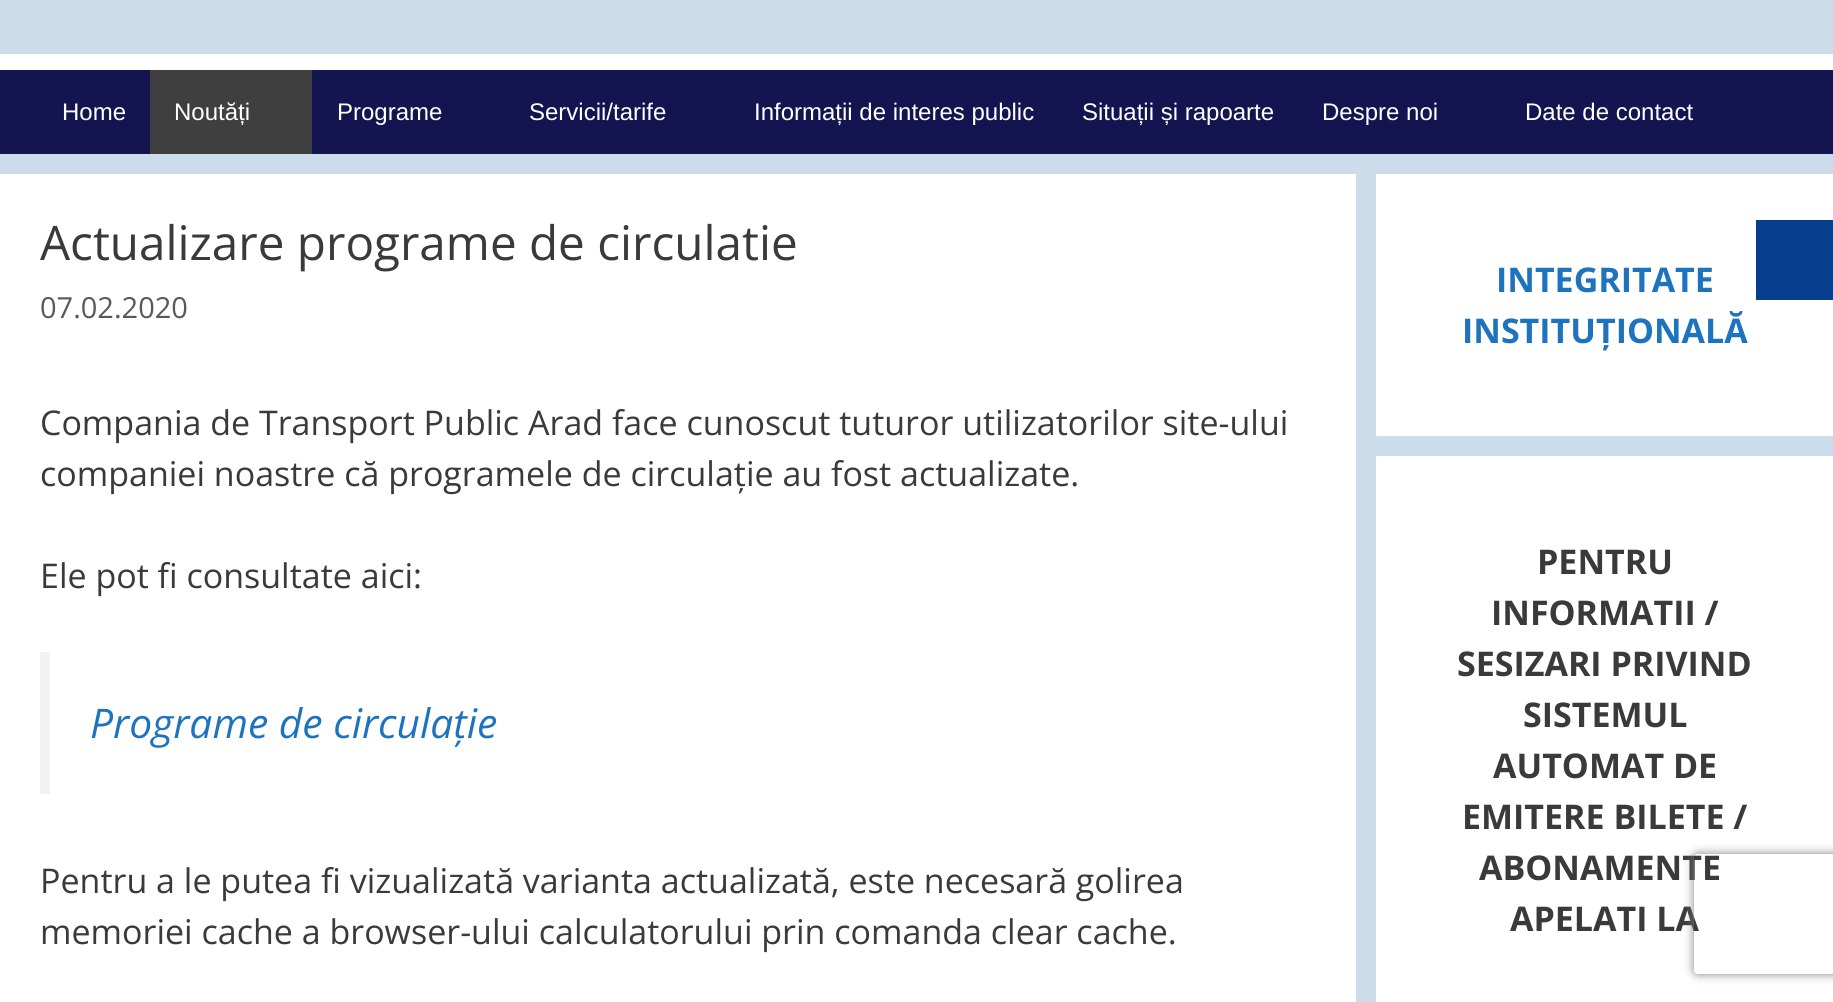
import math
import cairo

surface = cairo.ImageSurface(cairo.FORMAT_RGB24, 1833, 1002)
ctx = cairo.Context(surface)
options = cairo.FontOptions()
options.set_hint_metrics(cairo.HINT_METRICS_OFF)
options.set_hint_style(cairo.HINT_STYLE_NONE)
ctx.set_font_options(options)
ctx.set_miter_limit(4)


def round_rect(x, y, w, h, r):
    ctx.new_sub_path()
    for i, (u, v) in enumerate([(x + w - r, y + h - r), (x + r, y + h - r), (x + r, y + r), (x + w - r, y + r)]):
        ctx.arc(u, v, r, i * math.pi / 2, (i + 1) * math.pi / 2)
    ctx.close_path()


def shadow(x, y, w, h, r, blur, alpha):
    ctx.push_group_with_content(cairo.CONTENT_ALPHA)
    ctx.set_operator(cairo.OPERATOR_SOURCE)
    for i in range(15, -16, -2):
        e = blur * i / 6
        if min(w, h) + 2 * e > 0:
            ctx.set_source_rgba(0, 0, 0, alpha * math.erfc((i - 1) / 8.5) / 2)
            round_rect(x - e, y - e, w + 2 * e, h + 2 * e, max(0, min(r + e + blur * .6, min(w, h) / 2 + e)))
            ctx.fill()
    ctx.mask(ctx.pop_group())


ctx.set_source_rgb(0.8, 0.863, 0.918)
ctx.paint()
ctx.set_source_rgb(1, 1, 1)
ctx.rectangle(0, 54, 1833, 16)
ctx.fill()
ctx.set_source_rgb(0.082, 0.082, 0.318)
ctx.rectangle(0, 70, 1833, 84)
ctx.fill()
ctx.select_font_face("Liberation Sans")
ctx.set_font_size(24)
ctx.set_source_rgb(1, 1, 1)
ctx.move_to(62, 120)
ctx.show_text("Home")
ctx.set_source_rgb(0.247, 0.247, 0.247)
ctx.rectangle(150, 70, 162, 84)
ctx.fill()
ctx.set_source_rgb(1, 1, 1)
ctx.move_to(174, 120)
ctx.show_text("Noutăți")
ctx.move_to(337, 120)
ctx.show_text("Programe")
ctx.move_to(529, 120)
ctx.show_text("Servicii/tarife")
ctx.move_to(754, 120)
ctx.show_text("Informații de interes public")
ctx.move_to(1082, 120)
ctx.show_text("Situații și rapoarte")
ctx.move_to(1322, 120)
ctx.show_text("Despre noi")
ctx.move_to(1525, 120)
ctx.show_text("Date de contact")
ctx.rectangle(0, 174, 1356, 828)
ctx.fill()
ctx.select_font_face("Open Sans")
ctx.set_font_size(47.6)
ctx.set_source_rgb(0.227, 0.227, 0.227)
ctx.move_to(40, 260)
ctx.show_text("Actualizare programe de circulatie")
ctx.set_font_size(29)
ctx.set_source_rgb(0.349, 0.349, 0.349)
ctx.move_to(40, 318)
ctx.show_text("07.02.2020")
ctx.set_font_size(34)
ctx.set_source_rgb(0.227, 0.227, 0.227)
ctx.move_to(40, 435)
ctx.show_text("Compania de Transport Public Arad face cunoscut tuturor utilizatorilor site-ului")
ctx.move_to(40, 486)
ctx.show_text("companiei noastre că programele de circulație au fost actualizate.")
ctx.move_to(40, 588)
ctx.show_text("Ele pot fi consultate aici:")
ctx.set_source_rgb(0.949, 0.949, 0.949)
ctx.rectangle(40, 652, 10, 142)
ctx.fill()
ctx.select_font_face("Open Sans", cairo.FONT_SLANT_ITALIC)
ctx.set_font_size(40.75)
ctx.set_source_rgb(0.118, 0.451, 0.745)
ctx.move_to(90, 738)
ctx.show_text("Programe de circulație")
ctx.select_font_face("Open Sans")
ctx.set_font_size(34)
ctx.set_source_rgb(0.227, 0.227, 0.227)
ctx.move_to(40, 893)
ctx.show_text("Pentru a le putea fi vizualizată varianta actualizată, este necesară golirea")
ctx.move_to(40, 944)
ctx.show_text("memoriei cache a browser-ului calculatorului prin comanda clear cache.")
ctx.set_source_rgb(1, 1, 1)
ctx.rectangle(1376, 174, 457, 262)
ctx.fill()
ctx.select_font_face("Open Sans", cairo.FONT_SLANT_NORMAL, cairo.FONT_WEIGHT_BOLD)
ctx.set_source_rgb(0.118, 0.451, 0.745)
ctx.move_to(1496, 292)
ctx.show_text("INTEGRITATE")
ctx.move_to(1462, 343)
ctx.show_text("INSTITUȚIONALĂ")
ctx.set_source_rgb(1, 1, 1)
ctx.rectangle(1376, 456, 457, 546)
ctx.fill()
ctx.set_source_rgb(0.227, 0.227, 0.227)
ctx.move_to(1537, 574)
ctx.show_text("PENTRU")
ctx.move_to(1491, 625)
ctx.show_text("INFORMATII /")
ctx.move_to(1457, 676)
ctx.show_text("SESIZARI PRIVIND")
ctx.move_to(1523, 727)
ctx.show_text("SISTEMUL")
ctx.move_to(1493, 778)
ctx.show_text("AUTOMAT DE")
ctx.move_to(1462, 829)
ctx.show_text("EMITERE BILETE /")
ctx.move_to(1479, 880)
ctx.show_text("ABONAMENTE")
ctx.move_to(1510, 931)
ctx.show_text("APELATI LA")
ctx.set_source_rgb(0.024, 0.239, 0.553)
ctx.rectangle(1756, 220, 77, 80)
ctx.fill()
ctx.save()
ctx.set_fill_rule(cairo.FILL_RULE_EVEN_ODD)
ctx.new_path()
ctx.move_to(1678, 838)
ctx.line_to(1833, 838)
ctx.line_to(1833, 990)
ctx.line_to(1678, 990)
ctx.close_path()
ctx.move_to(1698, 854)
ctx.line_to(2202, 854)
ctx.curve_to(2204, 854, 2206, 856, 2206, 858)
ctx.line_to(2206, 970)
ctx.curve_to(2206, 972, 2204, 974, 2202, 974)
ctx.line_to(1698, 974)
ctx.curve_to(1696, 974, 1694, 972, 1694, 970)
ctx.line_to(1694, 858)
ctx.curve_to(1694, 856, 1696, 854, 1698, 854)
ctx.close_path()
ctx.clip()
ctx.set_source_rgb(0.502, 0.502, 0.502)
shadow(1694, 854, 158, 120, 4, 5, 1)
ctx.restore()
surface.write_to_png("page.png")
